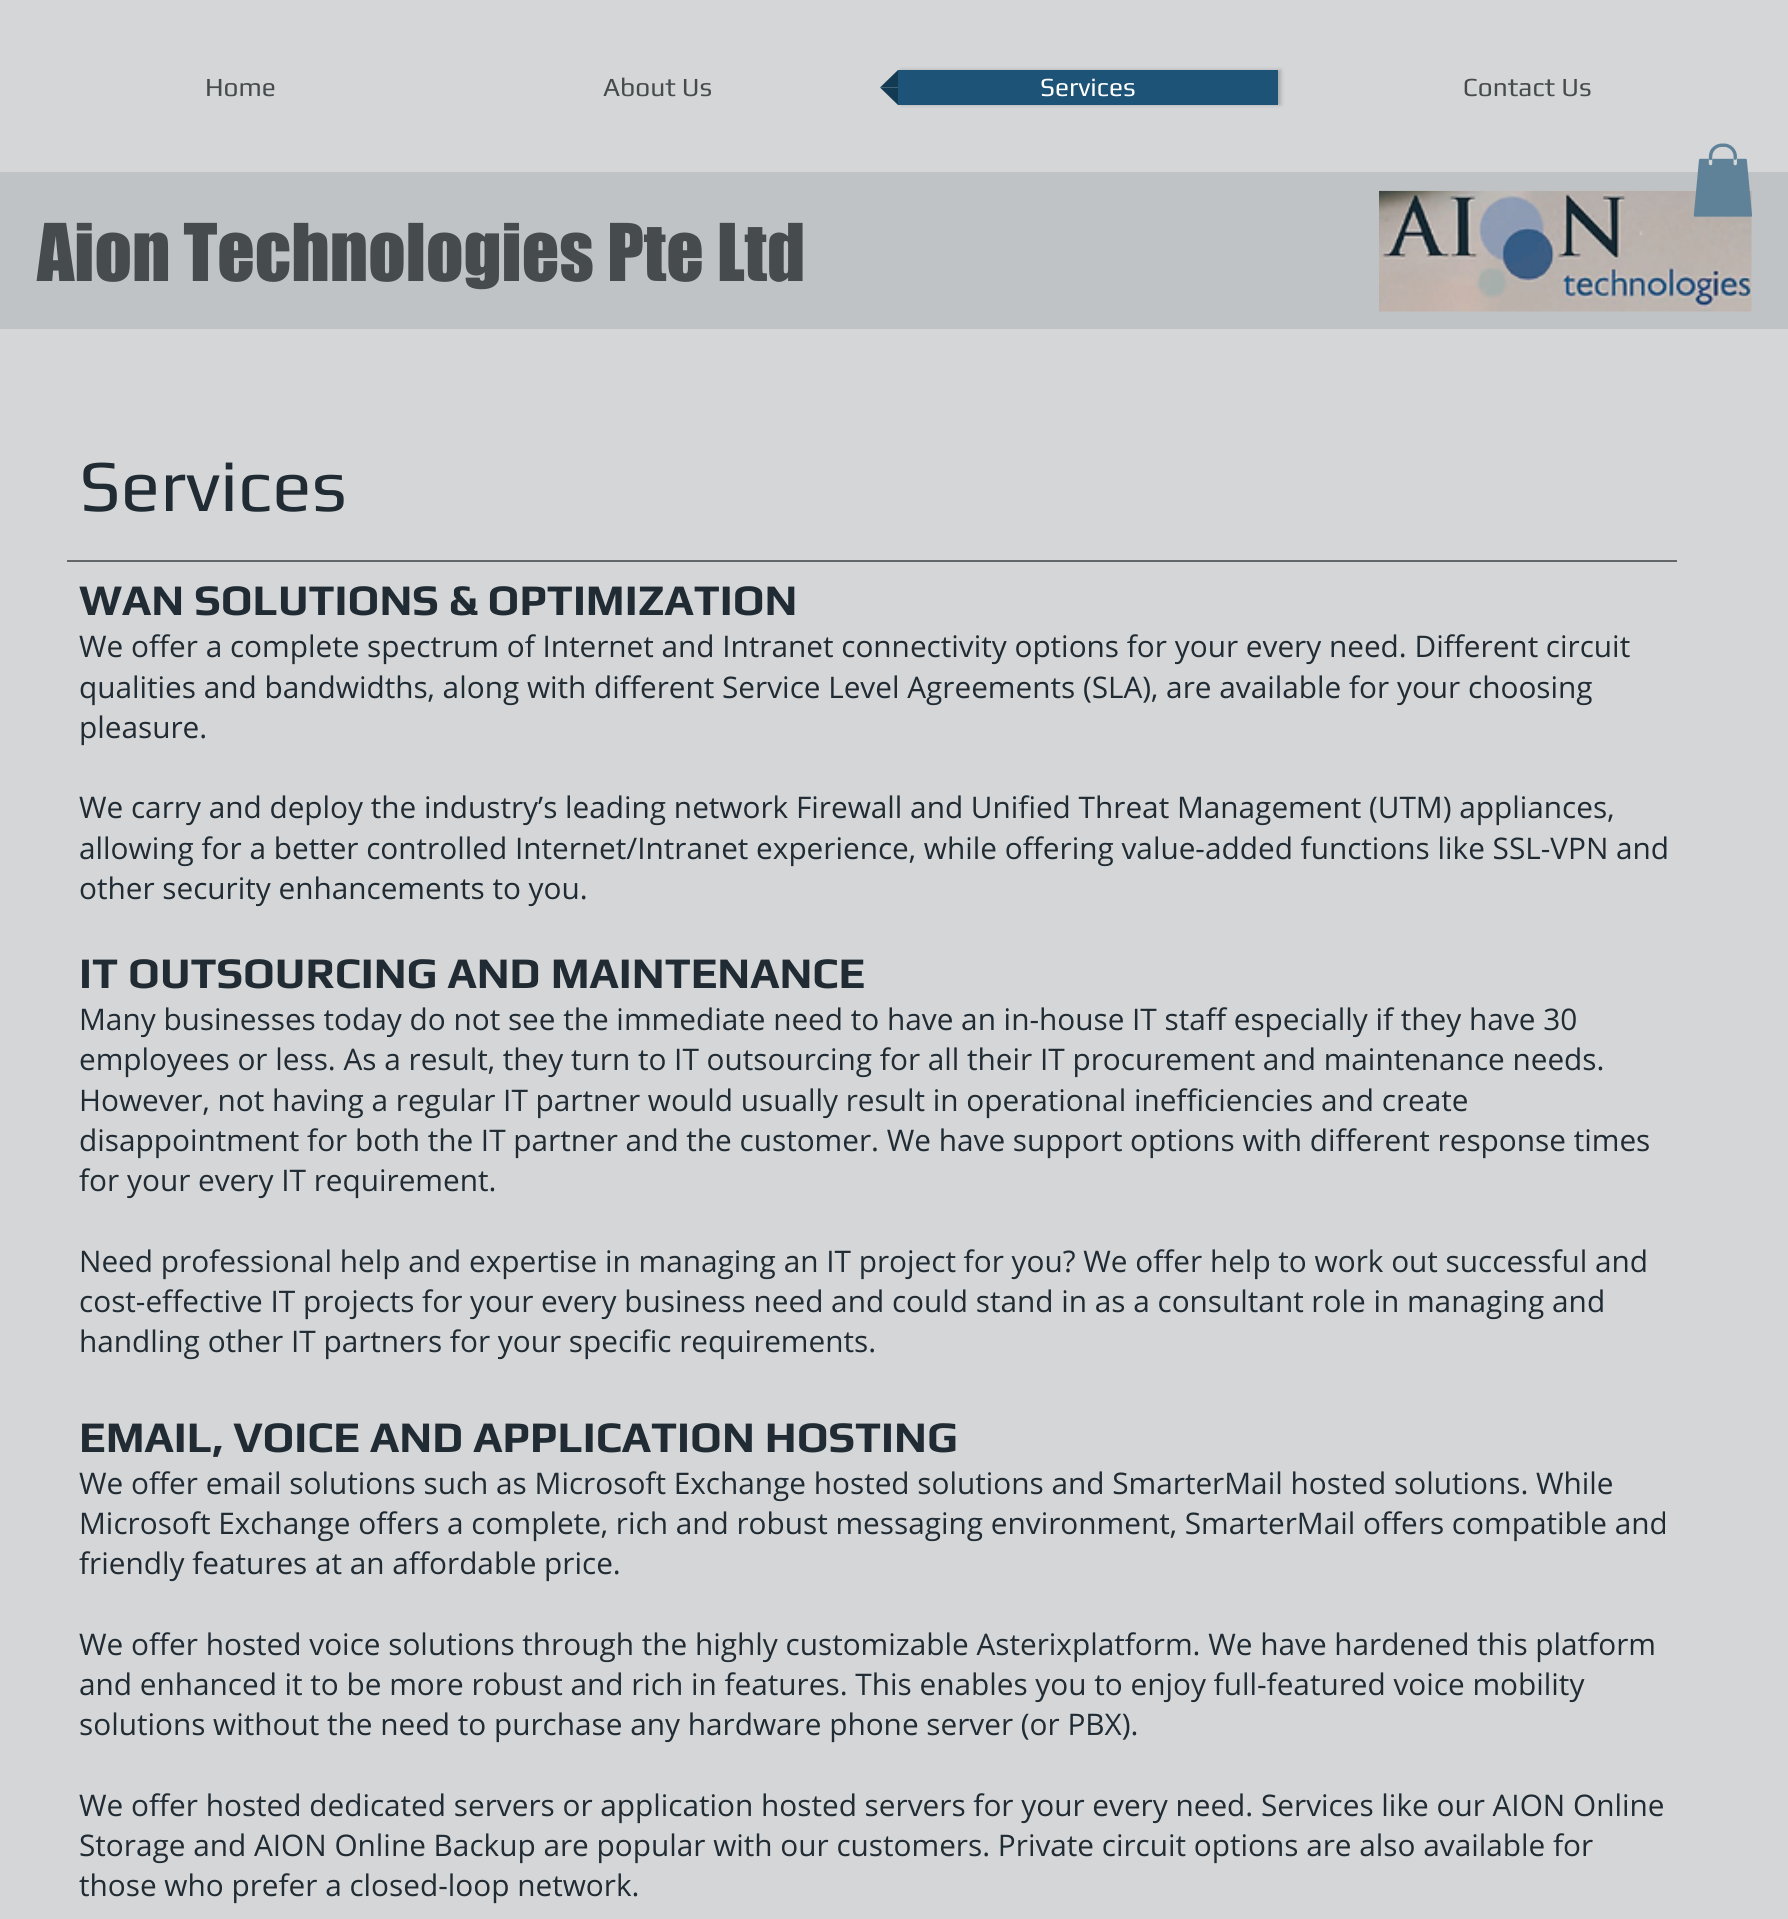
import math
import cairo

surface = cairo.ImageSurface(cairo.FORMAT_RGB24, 1788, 1919)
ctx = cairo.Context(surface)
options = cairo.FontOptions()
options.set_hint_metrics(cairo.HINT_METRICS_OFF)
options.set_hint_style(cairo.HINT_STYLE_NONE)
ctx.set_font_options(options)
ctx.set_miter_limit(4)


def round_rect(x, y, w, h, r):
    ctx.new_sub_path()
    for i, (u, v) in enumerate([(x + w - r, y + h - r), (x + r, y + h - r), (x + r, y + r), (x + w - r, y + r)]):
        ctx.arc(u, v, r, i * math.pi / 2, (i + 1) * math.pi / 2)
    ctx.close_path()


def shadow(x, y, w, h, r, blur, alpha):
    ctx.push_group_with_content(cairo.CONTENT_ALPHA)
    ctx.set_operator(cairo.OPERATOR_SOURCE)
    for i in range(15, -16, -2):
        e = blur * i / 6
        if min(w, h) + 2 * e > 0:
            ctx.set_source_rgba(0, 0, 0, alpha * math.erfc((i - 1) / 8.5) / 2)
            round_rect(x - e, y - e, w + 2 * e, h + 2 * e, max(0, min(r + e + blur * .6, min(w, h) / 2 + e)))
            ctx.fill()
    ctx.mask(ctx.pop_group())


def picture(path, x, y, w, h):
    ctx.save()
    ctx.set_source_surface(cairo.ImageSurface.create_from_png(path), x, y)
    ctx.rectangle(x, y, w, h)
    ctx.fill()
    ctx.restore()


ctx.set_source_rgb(0.831, 0.839, 0.843)
ctx.paint()
ctx.select_font_face("Play")
ctx.set_font_size(26.25)
ctx.set_source_rgb(0.275, 0.294, 0.306)
ctx.move_to(205, 96)
ctx.show_text("Home")
ctx.move_to(603, 96)
ctx.show_text("About Us")
ctx.set_source_rgb(0, 0, 0)
shadow(901, 70, 380, 35, 0, 2, 0.2)
ctx.set_source_rgb(0.078, 0.227, 0.325)
ctx.new_path()
ctx.move_to(898, 87.5)
ctx.line_to(880, 87.5)
ctx.line_to(898, 70)
ctx.close_path()
ctx.fill()
ctx.set_source_rgb(0.114, 0.325, 0.467)
ctx.rectangle(898, 70, 380, 35)
ctx.fill()
ctx.set_source_rgb(0.078, 0.227, 0.325)
ctx.new_path()
ctx.move_to(880, 87.5)
ctx.line_to(898, 87.5)
ctx.line_to(898, 105)
ctx.close_path()
ctx.fill()
ctx.set_source_rgb(1, 1, 1)
ctx.move_to(1040, 96)
ctx.show_text("Services")
ctx.set_source_rgb(0.275, 0.294, 0.306)
ctx.move_to(1463, 96)
ctx.show_text("Contact Us")
ctx.set_source_rgb(0.753, 0.765, 0.773)
ctx.rectangle(0, 172, 1788, 157)
ctx.fill()
picture("img2.png", 1379, 190, 373, 122)
picture("img1.png", 1693, 143, 60, 74)
ctx.select_font_face("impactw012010")
ctx.set_font_size(73.5)
ctx.set_source_rgb(0.275, 0.294, 0.306)
ctx.move_to(37, 281)
ctx.show_text("Aion Technologies Pte Ltd")
ctx.select_font_face("Play")
ctx.set_source_rgb(0.125, 0.169, 0.2)
ctx.move_to(79, 511)
ctx.show_text("Services")
ctx.set_source_rgb(0.388, 0.404, 0.412)
ctx.rectangle(67, 560, 1610, 2)
ctx.fill()
ctx.select_font_face("Play", cairo.FONT_SLANT_NORMAL, cairo.FONT_WEIGHT_BOLD)
ctx.set_font_size(43.75)
ctx.set_source_rgb(0.125, 0.169, 0.2)
ctx.move_to(79, 615)
ctx.show_text("WAN SOLUTIONS & OPTIMIZATION")
ctx.select_font_face("Open Sans")
ctx.set_font_size(29.75)
ctx.move_to(79, 657)
ctx.show_text("We offer a complete spectrum of Internet and Intranet connectivity options for your every need. Different circuit")
ctx.move_to(79, 698)
ctx.show_text("qualities and bandwidths, along with different Service Level Agreements (SLA), are available for your choosing")
ctx.move_to(79, 738)
ctx.show_text("pleasure.")
ctx.move_to(79, 818)
ctx.show_text("We carry and deploy the industry’s leading network Firewall and Unified Threat Management (UTM) appliances,")
ctx.move_to(79, 859)
ctx.show_text("allowing for a better controlled Internet/Intranet experience, while offering value-added functions like SSL-VPN and")
ctx.move_to(79, 899)
ctx.show_text("other security enhancements to you.")
ctx.select_font_face("Play", cairo.FONT_SLANT_NORMAL, cairo.FONT_WEIGHT_BOLD)
ctx.set_font_size(43.75)
ctx.move_to(79, 988)
ctx.show_text("IT OUTSOURCING AND MAINTENANCE")
ctx.select_font_face("Open Sans")
ctx.set_font_size(29.75)
ctx.move_to(79, 1030)
ctx.show_text("Many businesses today do not see the immediate need to have an in-house IT staff especially if they have 30")
ctx.move_to(79, 1070)
ctx.show_text("employees or less. As a result, they turn to IT outsourcing for all their IT procurement and maintenance needs.")
ctx.move_to(79, 1111)
ctx.show_text("However, not having a regular IT partner would usually result in operational inefficiencies and create")
ctx.move_to(79, 1151)
ctx.show_text("disappointment for both the IT partner and the customer. We have support options with different response times")
ctx.move_to(79, 1191)
ctx.show_text("for your every IT requirement.")
ctx.move_to(79, 1272)
ctx.show_text("Need professional help and expertise in managing an IT project for you? We offer help to work out successful and")
ctx.move_to(79, 1312)
ctx.show_text("cost-effective IT projects for your every business need and could stand in as a consultant role in managing and")
ctx.move_to(79, 1352)
ctx.show_text("handling other IT partners for your specific requirements.")
ctx.select_font_face("Play", cairo.FONT_SLANT_NORMAL, cairo.FONT_WEIGHT_BOLD)
ctx.set_font_size(43.75)
ctx.move_to(79, 1452)
ctx.show_text("EMAIL, VOICE AND APPLICATION HOSTING")
ctx.select_font_face("Open Sans")
ctx.set_font_size(29.75)
ctx.move_to(79, 1494)
ctx.show_text("We offer email solutions such as Microsoft Exchange hosted solutions and SmarterMail hosted solutions. While")
ctx.move_to(79, 1534)
ctx.show_text("Microsoft Exchange offers a complete, rich and robust messaging environment, SmarterMail offers compatible and")
ctx.move_to(79, 1574)
ctx.show_text("friendly features at an affordable price.")
ctx.move_to(79, 1655)
ctx.show_text("We offer hosted voice solutions through the highly customizable Asterixplatform. We have hardened this platform")
ctx.move_to(79, 1695)
ctx.show_text("and enhanced it to be more robust and rich in features. This enables you to enjoy full-featured voice mobility")
ctx.move_to(79, 1735)
ctx.show_text("solutions without the need to purchase any hardware phone server (or PBX).")
ctx.move_to(79, 1816)
ctx.show_text("We offer hosted dedicated servers or application hosted servers for your every need. Services like our AION Online")
ctx.move_to(79, 1856)
ctx.show_text("Storage and AION Online Backup are popular with our customers. Private circuit options are also available for")
ctx.move_to(79, 1896)
ctx.show_text("those who prefer a closed-loop network.")
surface.write_to_png("page.png")
